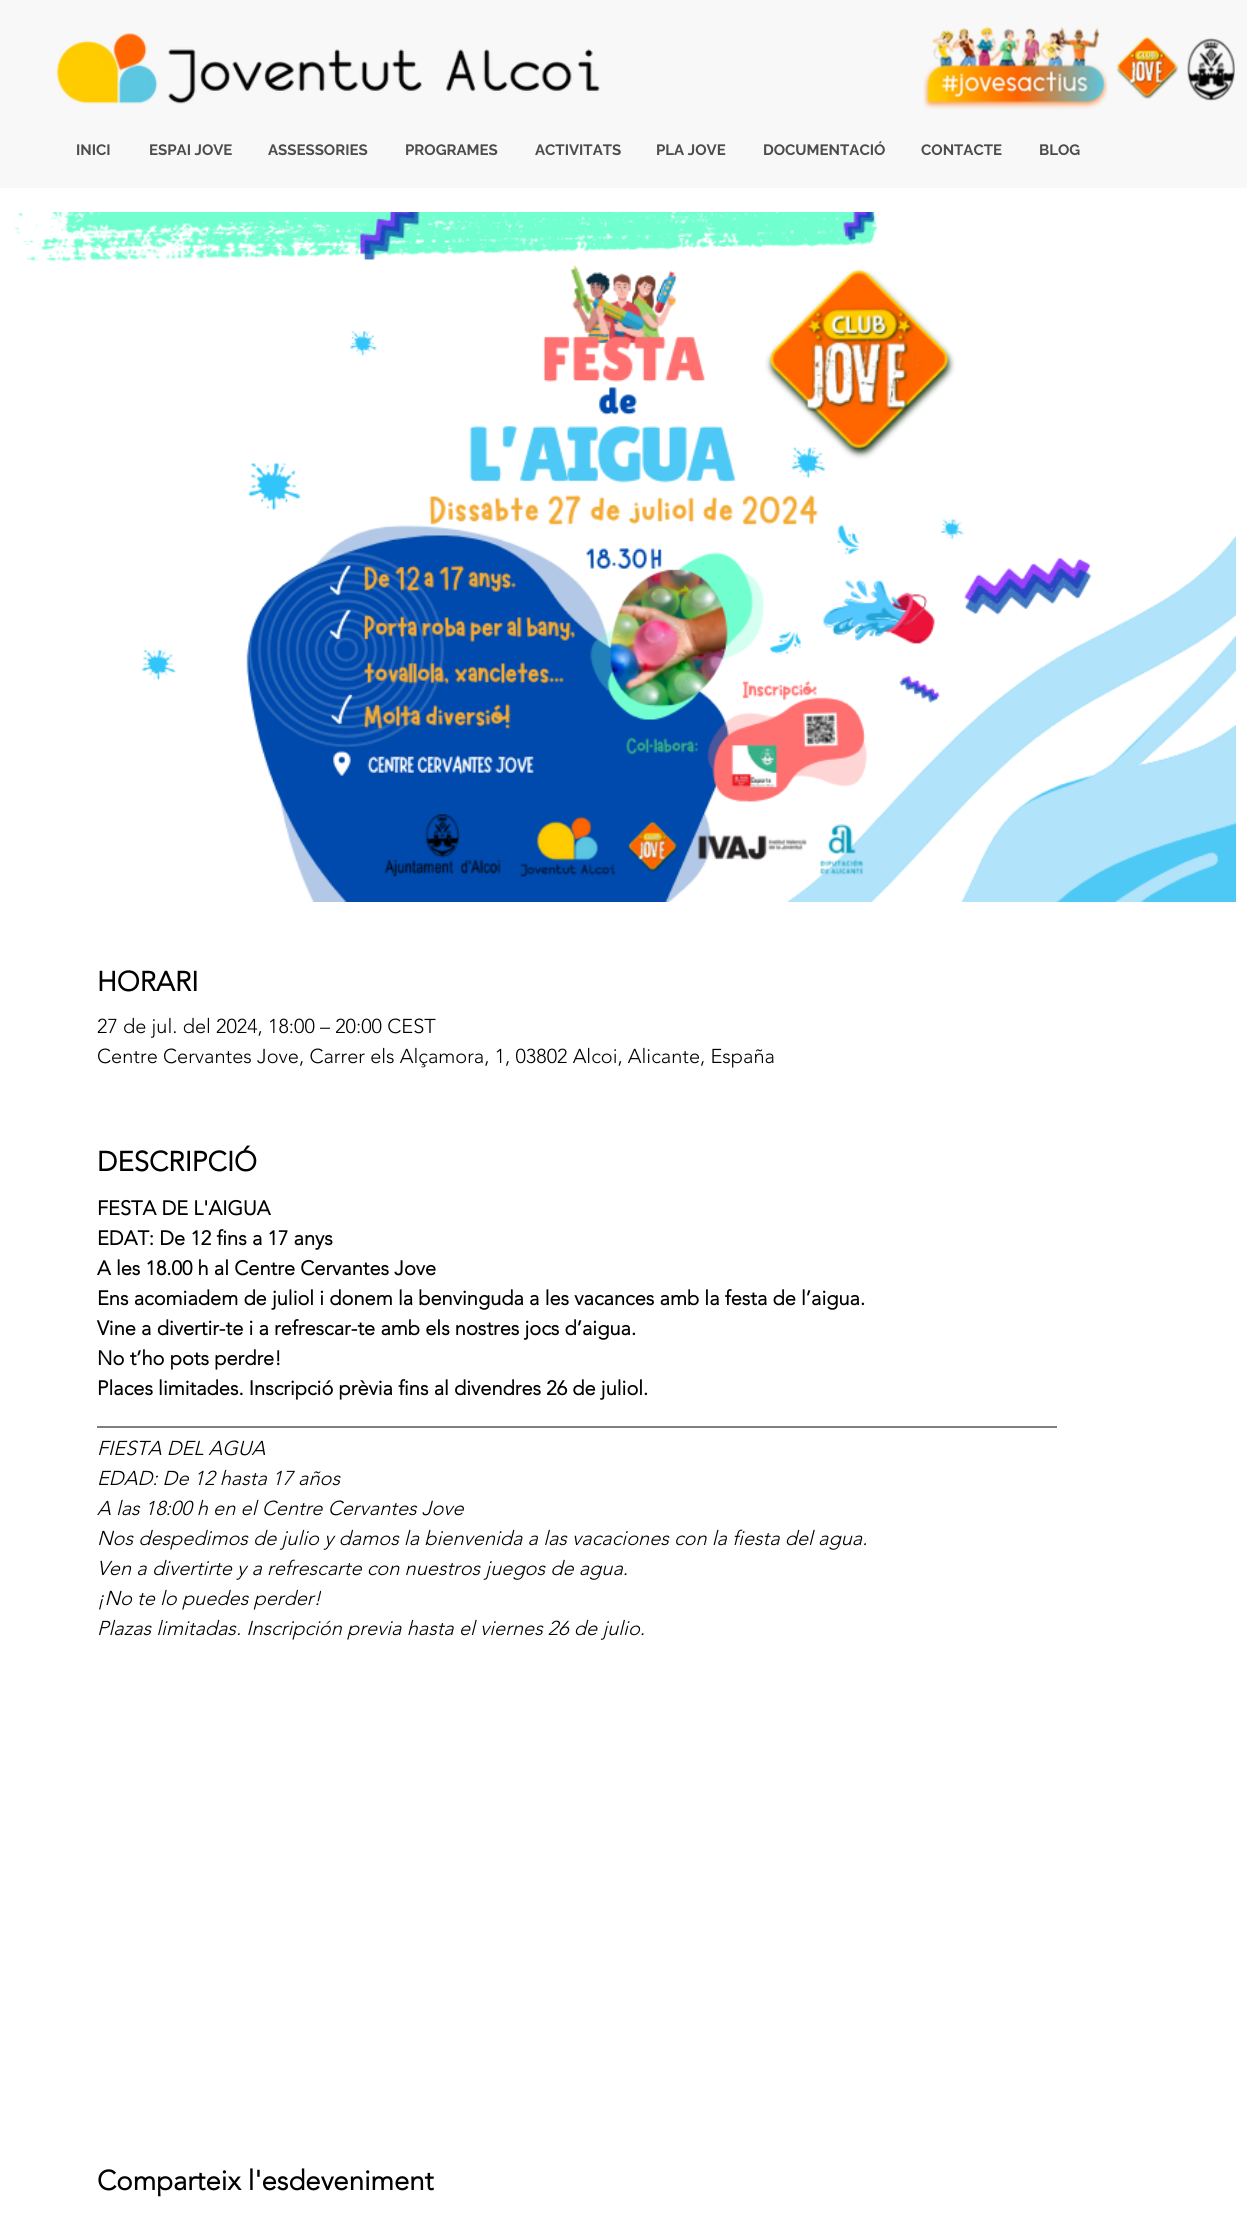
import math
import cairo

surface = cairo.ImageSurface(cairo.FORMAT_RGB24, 1247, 2227)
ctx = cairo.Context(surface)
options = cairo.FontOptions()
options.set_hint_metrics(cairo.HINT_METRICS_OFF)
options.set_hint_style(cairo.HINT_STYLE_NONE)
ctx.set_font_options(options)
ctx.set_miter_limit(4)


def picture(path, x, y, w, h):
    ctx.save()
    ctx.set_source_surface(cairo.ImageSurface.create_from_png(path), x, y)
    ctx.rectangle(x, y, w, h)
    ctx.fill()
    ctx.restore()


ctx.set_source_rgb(1, 1, 1)
ctx.paint()
ctx.set_source_rgb(0.969, 0.969, 0.969)
ctx.rectangle(0, 0, 1247, 188)
ctx.fill()
picture("img1.png", 56, 33, 544, 71)
picture("img2.png", 923, 26, 185, 84)
picture("img3.png", 1116, 36, 63, 63)
picture("img4.png", 1187, 38, 48, 63)
ctx.select_font_face("Raleway", cairo.FONT_SLANT_NORMAL, cairo.FONT_WEIGHT_BOLD)
ctx.set_font_size(15)
ctx.set_source_rgb(0.302, 0.302, 0.302)
ctx.move_to(76, 155)
ctx.show_text("INICI")
ctx.move_to(149, 155)
ctx.show_text("ESPAI JOVE")
ctx.move_to(268, 155)
ctx.show_text("ASSESSORIES")
ctx.move_to(405, 155)
ctx.show_text("PROGRAMES")
ctx.move_to(535, 155)
ctx.show_text("ACTIVITATS")
ctx.move_to(656, 155)
ctx.show_text("PLA JOVE")
ctx.move_to(763, 155)
ctx.show_text("DOCUMENTACIÓ")
ctx.move_to(921, 155)
ctx.show_text("CONTACTE")
ctx.move_to(1039, 155)
ctx.show_text("BLOG")
picture("img5.png", 13, 212, 1224, 690)
ctx.select_font_face("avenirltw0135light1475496", cairo.FONT_SLANT_NORMAL, cairo.FONT_WEIGHT_BOLD)
ctx.set_font_size(27.5)
ctx.set_source_rgb(0, 0, 0)
ctx.move_to(97, 991)
ctx.show_text("HORARI")
ctx.select_font_face("avenirltw0135light1475496 Light")
ctx.set_font_size(20)
ctx.move_to(97, 1033)
ctx.show_text("27 de jul. del 2024, 18:00 – 20:00 CEST")
ctx.move_to(97, 1063)
ctx.show_text("Centre Cervantes Jove, Carrer els Alçamora, 1, 03802 Alcoi, Alicante, España")
ctx.select_font_face("avenirltw0135light1475496", cairo.FONT_SLANT_NORMAL, cairo.FONT_WEIGHT_BOLD)
ctx.set_font_size(27.5)
ctx.move_to(97, 1171)
ctx.show_text("DESCRIPCIÓ")
ctx.set_font_size(20)
ctx.move_to(97, 1215)
ctx.show_text("FESTA DE L'AIGUA")
ctx.move_to(97, 1245)
ctx.show_text("EDAT: De 12 fins a 17 anys")
ctx.move_to(97, 1275)
ctx.show_text("A les 18.00 h al Centre Cervantes Jove")
ctx.move_to(97, 1305)
ctx.show_text("Ens acomiadem de juliol i donem la benvinguda a les vacances amb la festa de l’aigua.")
ctx.move_to(97, 1335)
ctx.show_text("Vine a divertir-te i a refrescar-te amb els nostres jocs d’aigua.")
ctx.move_to(97, 1365)
ctx.show_text("No t’ho pots perdre!")
ctx.move_to(97, 1395)
ctx.show_text("Places limitades. Inscripció prèvia fins al divendres 26 de juliol.")
ctx.select_font_face("avenirltw0135light1475496 Light")
ctx.move_to(97, 1425)
ctx.show_text("________________________________________________________________________________________________")
ctx.select_font_face("avenirltw0135light1475496 Light", cairo.FONT_SLANT_ITALIC)
ctx.move_to(97, 1455)
ctx.show_text("FIESTA DEL AGUA")
ctx.move_to(97, 1485)
ctx.show_text("EDAD: De 12 hasta 17 años")
ctx.move_to(97, 1515)
ctx.show_text("A las 18:00 h en el Centre Cervantes Jove")
ctx.move_to(97, 1545)
ctx.show_text("Nos despedimos de julio y damos la bienvenida a las vacaciones con la fiesta del agua.")
ctx.move_to(97, 1575)
ctx.show_text("Ven a divertirte y a refrescarte con nuestros juegos de agua.")
ctx.move_to(97, 1605)
ctx.show_text("¡No te lo puedes perder!")
ctx.move_to(97, 1635)
ctx.show_text("Plazas limitadas. Inscripción previa hasta el viernes 26 de julio.")
ctx.select_font_face("avenirltw0135light1475496", cairo.FONT_SLANT_NORMAL, cairo.FONT_WEIGHT_BOLD)
ctx.set_font_size(27.5)
ctx.move_to(97, 2190)
ctx.show_text("Comparteix l'esdeveniment")
surface.write_to_png("page.png")
